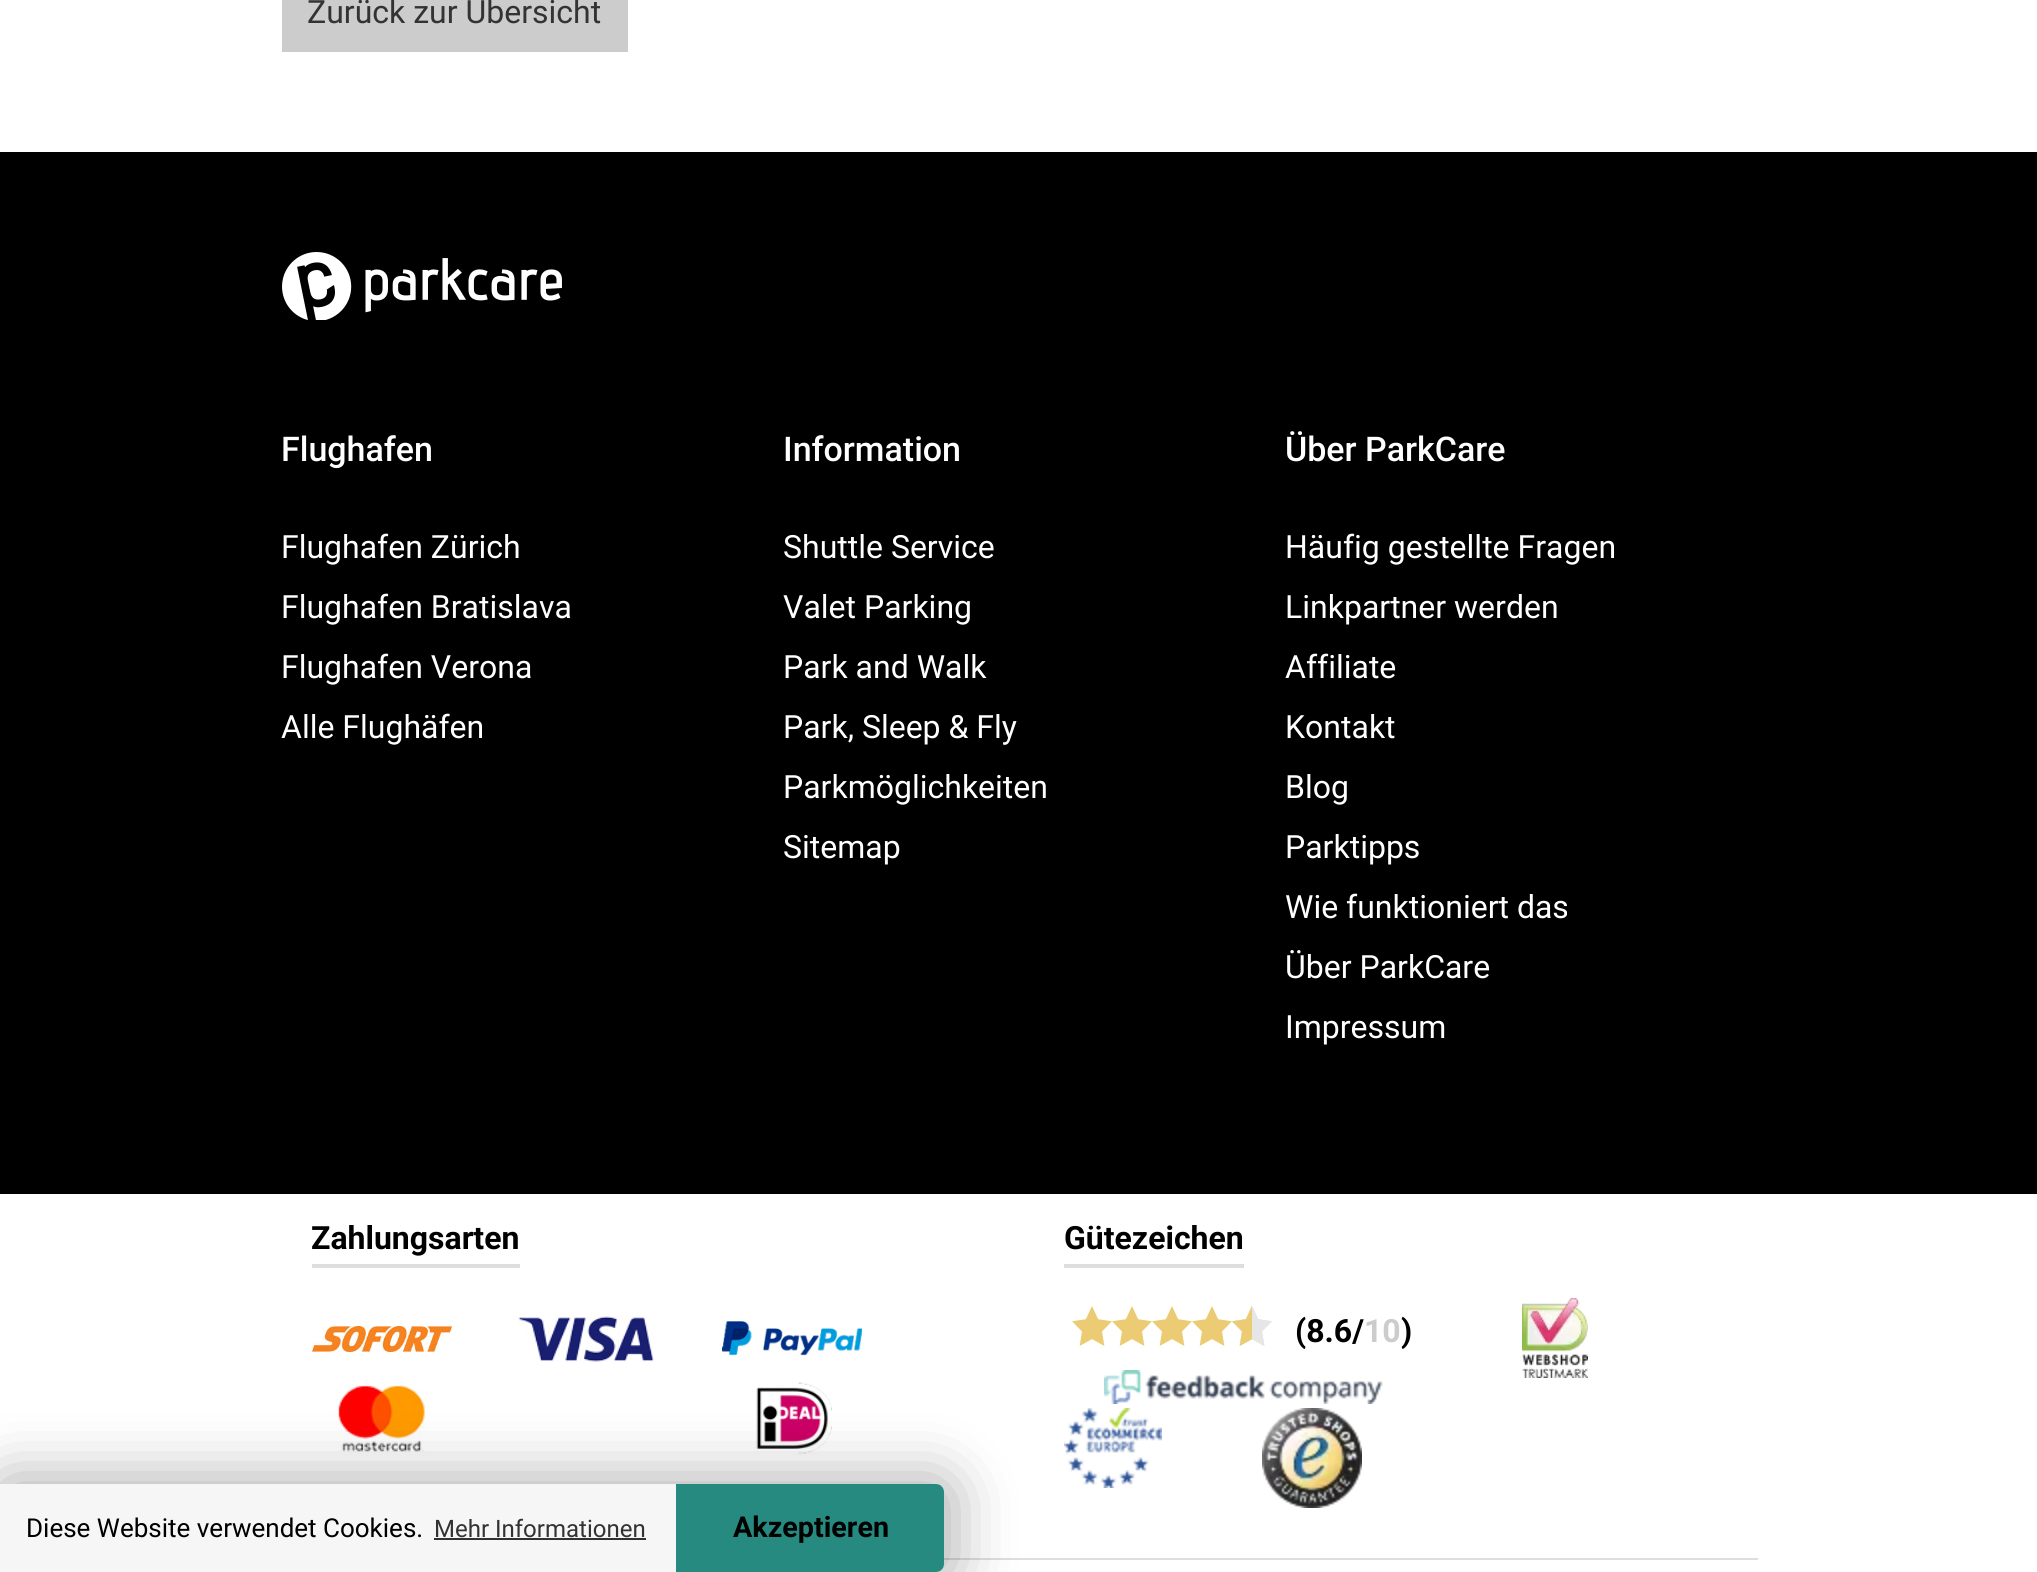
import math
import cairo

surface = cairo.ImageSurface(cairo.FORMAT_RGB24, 2037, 1572)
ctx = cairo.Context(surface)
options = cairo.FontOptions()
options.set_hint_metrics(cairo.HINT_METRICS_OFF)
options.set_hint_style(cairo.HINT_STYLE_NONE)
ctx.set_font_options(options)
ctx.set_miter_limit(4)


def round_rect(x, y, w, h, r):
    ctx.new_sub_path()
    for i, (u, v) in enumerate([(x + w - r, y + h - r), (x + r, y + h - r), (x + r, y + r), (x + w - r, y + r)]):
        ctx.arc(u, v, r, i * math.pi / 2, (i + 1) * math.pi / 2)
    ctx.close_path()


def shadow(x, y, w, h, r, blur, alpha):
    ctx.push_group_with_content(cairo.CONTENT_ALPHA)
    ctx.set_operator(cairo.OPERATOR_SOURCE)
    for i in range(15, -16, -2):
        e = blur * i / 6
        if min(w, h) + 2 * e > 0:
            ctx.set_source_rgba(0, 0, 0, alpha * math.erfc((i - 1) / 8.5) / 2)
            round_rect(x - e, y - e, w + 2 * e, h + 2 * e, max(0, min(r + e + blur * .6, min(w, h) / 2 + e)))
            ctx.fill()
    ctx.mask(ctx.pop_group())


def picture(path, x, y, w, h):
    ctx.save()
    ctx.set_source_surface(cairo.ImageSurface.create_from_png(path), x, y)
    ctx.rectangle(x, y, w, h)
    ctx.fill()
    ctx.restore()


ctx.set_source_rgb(1, 1, 1)
ctx.paint()
ctx.set_source_rgb(0.8, 0.8, 0.8)
ctx.rectangle(282, 0, 346, 52)
ctx.fill()
ctx.select_font_face("Roboto")
ctx.set_font_size(32)
ctx.set_source_rgb(0.2, 0.2, 0.2)
ctx.move_to(307, 23)
ctx.show_text("Zurück zur Übersicht")
ctx.set_source_rgb(0, 0, 0)
ctx.rectangle(0, 152, 2037, 1042)
ctx.fill()
picture("img1.png", 282, 252, 280, 68)
ctx.select_font_face("Roboto Medium")
ctx.set_font_size(34)
ctx.set_source_rgb(1, 1, 1)
ctx.move_to(281, 461)
ctx.show_text("Flughafen")
ctx.select_font_face("Roboto")
ctx.set_font_size(32)
ctx.move_to(281, 558)
ctx.show_text("Flughafen Zürich")
ctx.move_to(281, 618)
ctx.show_text("Flughafen Bratislava")
ctx.move_to(281, 678)
ctx.show_text("Flughafen Verona")
ctx.move_to(281, 738)
ctx.show_text("Alle Flughäfen")
ctx.select_font_face("Roboto Medium")
ctx.set_font_size(34)
ctx.move_to(783, 461)
ctx.show_text("Information")
ctx.select_font_face("Roboto")
ctx.set_font_size(32)
ctx.move_to(783, 558)
ctx.show_text("Shuttle Service")
ctx.move_to(783, 618)
ctx.show_text("Valet Parking")
ctx.move_to(783, 678)
ctx.show_text("Park and Walk")
ctx.move_to(783, 738)
ctx.show_text("Park, Sleep & Fly")
ctx.move_to(783, 798)
ctx.show_text("Parkmöglichkeiten")
ctx.move_to(783, 858)
ctx.show_text("Sitemap")
ctx.select_font_face("Roboto Medium")
ctx.set_font_size(34)
ctx.move_to(1285, 461)
ctx.show_text("Über ParkCare")
ctx.select_font_face("Roboto")
ctx.set_font_size(32)
ctx.move_to(1285, 558)
ctx.show_text("Häufig gestellte Fragen")
ctx.move_to(1285, 618)
ctx.show_text("Linkpartner werden")
ctx.move_to(1285, 678)
ctx.show_text("Affiliate")
ctx.move_to(1285, 738)
ctx.show_text("Kontakt")
ctx.move_to(1285, 798)
ctx.show_text("Blog")
ctx.move_to(1285, 858)
ctx.show_text("Parktipps")
ctx.move_to(1285, 918)
ctx.show_text("Wie funktioniert das")
ctx.move_to(1285, 978)
ctx.show_text("Über ParkCare")
ctx.move_to(1285, 1038)
ctx.show_text("Impressum")
ctx.set_source_rgb(0.871, 0.871, 0.871)
ctx.rectangle(312, 1264, 208, 4)
ctx.fill()
ctx.select_font_face("Roboto", cairo.FONT_SLANT_NORMAL, cairo.FONT_WEIGHT_BOLD)
ctx.set_source_rgb(0, 0, 0)
ctx.move_to(311, 1249)
ctx.show_text("Zahlungsarten")
picture("img2.png", 312, 1326, 140, 26)
picture("img3.png", 518, 1316, 136, 46)
picture("img4.png", 722, 1321, 140, 35)
picture("img5.png", 335, 1385, 90, 67)
picture("img6.png", 756, 1382, 76, 73)
ctx.set_source_rgb(0.871, 0.871, 0.871)
ctx.rectangle(1064, 1264, 180, 4)
ctx.fill()
ctx.set_source_rgb(0, 0, 0)
ctx.move_to(1064, 1249)
ctx.show_text("Gütezeichen")
picture("img7.png", 1072, 1306, 40, 40)
picture("img7.png", 1112, 1306, 40, 40)
picture("img7.png", 1152, 1306, 40, 40)
picture("img7.png", 1192, 1306, 40, 40)
picture("img8.png", 1232, 1306, 40, 40)
ctx.move_to(1295, 1342)
ctx.show_text("(8.6/")
ctx.set_source_rgb(0.8, 0.8, 0.8)
ctx.move_to(1364, 1342)
ctx.show_text("10")
ctx.set_source_rgb(0, 0, 0)
ctx.move_to(1401, 1342)
ctx.show_text(")")
picture("img9.png", 1104, 1370, 279, 34)
picture("img10.png", 1522, 1298, 66, 80)
picture("img11.png", 1064, 1408, 98, 80)
picture("img12.png", 1262, 1408, 100, 100)
ctx.set_source_rgb(0.871, 0.871, 0.871)
ctx.rectangle(944, 1558, 814, 2)
ctx.fill()
ctx.set_source_rgb(0, 0, 0)
shadow(-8, 1476, 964, 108, 18, 30, 0.3)
ctx.set_source_rgb(0.961, 0.961, 0.961)
ctx.new_path()
ctx.move_to(0, 1484)
ctx.line_to(936, 1484)
ctx.curve_to(940.5, 1484, 944, 1487.5, 944, 1492)
ctx.line_to(944, 1564)
ctx.curve_to(944, 1568.5, 940.5, 1572, 936, 1572)
ctx.line_to(0, 1572)
ctx.close_path()
ctx.fill()
ctx.select_font_face("Roboto")
ctx.set_font_size(26)
ctx.set_source_rgb(0, 0, 0)
ctx.move_to(26, 1537)
ctx.show_text("Diese Website verwendet Cookies.")
ctx.set_font_size(24)
ctx.set_source_rgb(0.2, 0.2, 0.2)
ctx.move_to(434, 1537)
ctx.show_text("Mehr Informationen")
ctx.set_source_rgb(0.192, 0.192, 0.192)
ctx.rectangle(434, 1538, 212, 2)
ctx.fill()
ctx.set_source_rgb(0.153, 0.541, 0.506)
ctx.new_path()
ctx.move_to(676, 1484)
ctx.line_to(936, 1484)
ctx.curve_to(940.5, 1484, 944, 1487.5, 944, 1492)
ctx.line_to(944, 1564)
ctx.curve_to(944, 1568.5, 940.5, 1572, 936, 1572)
ctx.line_to(676, 1572)
ctx.close_path()
ctx.fill()
ctx.select_font_face("Roboto", cairo.FONT_SLANT_NORMAL, cairo.FONT_WEIGHT_BOLD)
ctx.set_font_size(28.75)
ctx.set_source_rgb(0, 0, 0)
ctx.move_to(733, 1537)
ctx.show_text("Akzeptieren")
surface.write_to_png("page.png")
